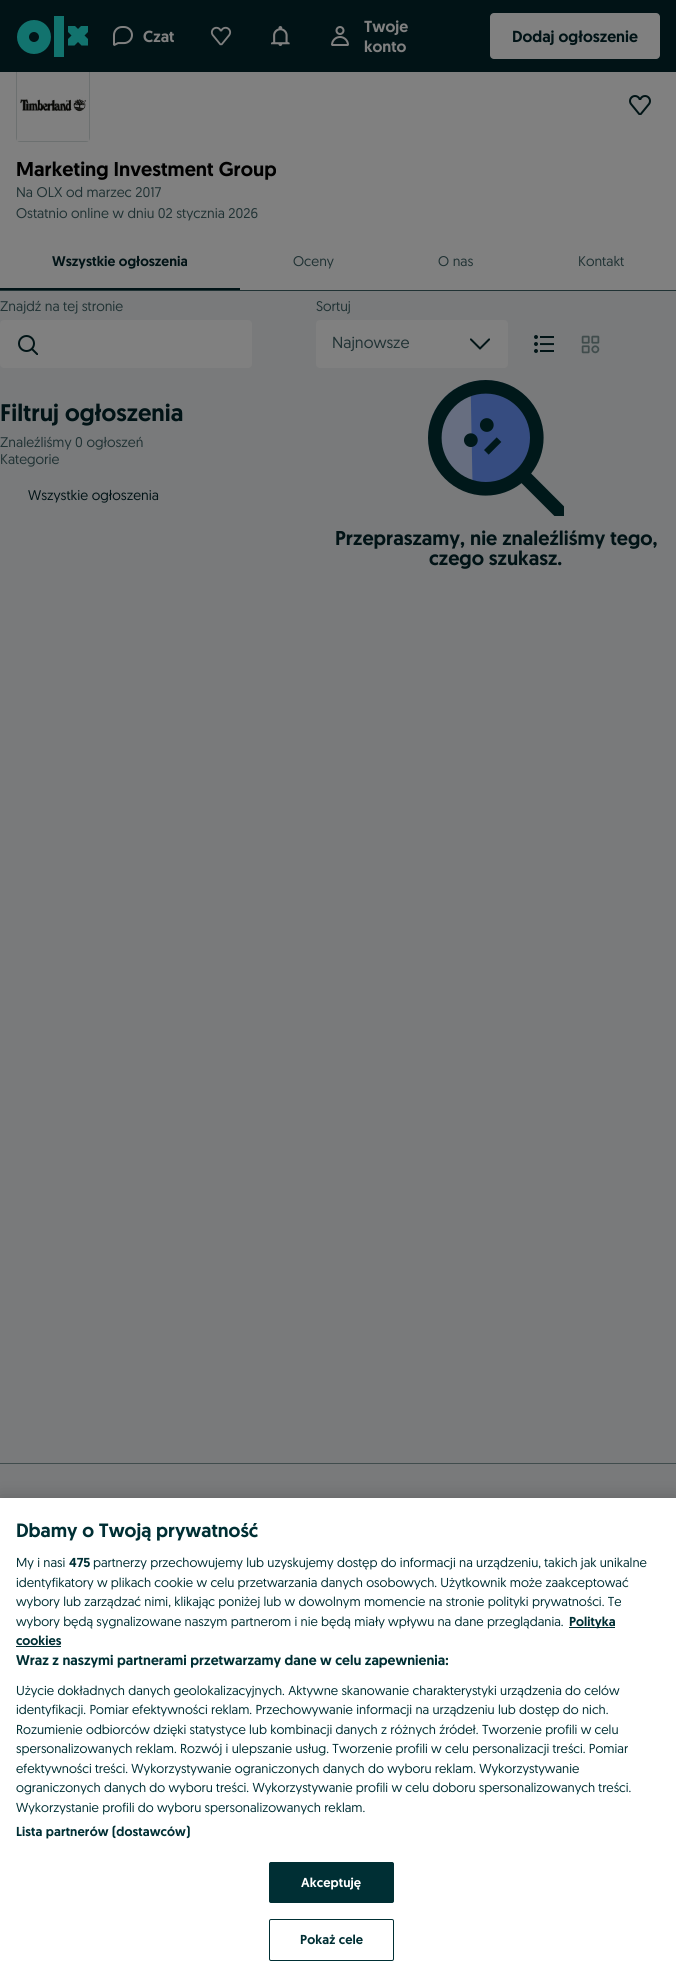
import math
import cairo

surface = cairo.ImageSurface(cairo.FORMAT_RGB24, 676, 1977)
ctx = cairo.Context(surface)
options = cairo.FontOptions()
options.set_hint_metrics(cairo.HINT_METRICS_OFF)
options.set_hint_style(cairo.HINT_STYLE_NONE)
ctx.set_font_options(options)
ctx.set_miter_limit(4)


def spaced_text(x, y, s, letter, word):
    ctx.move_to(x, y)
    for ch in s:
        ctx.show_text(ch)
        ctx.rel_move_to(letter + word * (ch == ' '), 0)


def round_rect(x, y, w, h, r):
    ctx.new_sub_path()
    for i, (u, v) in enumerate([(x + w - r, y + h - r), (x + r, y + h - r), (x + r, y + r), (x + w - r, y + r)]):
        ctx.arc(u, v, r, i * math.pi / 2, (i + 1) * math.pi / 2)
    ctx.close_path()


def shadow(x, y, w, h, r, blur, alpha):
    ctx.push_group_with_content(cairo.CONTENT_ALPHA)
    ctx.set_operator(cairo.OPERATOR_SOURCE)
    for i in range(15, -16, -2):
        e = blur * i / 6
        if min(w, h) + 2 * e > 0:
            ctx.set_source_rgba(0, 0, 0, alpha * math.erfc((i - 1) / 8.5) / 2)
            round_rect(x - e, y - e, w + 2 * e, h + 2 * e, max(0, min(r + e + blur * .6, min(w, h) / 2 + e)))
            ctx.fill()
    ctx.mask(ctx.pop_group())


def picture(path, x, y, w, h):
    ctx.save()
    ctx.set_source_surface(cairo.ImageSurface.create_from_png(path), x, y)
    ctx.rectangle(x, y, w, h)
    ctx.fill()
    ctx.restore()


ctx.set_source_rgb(0.475, 0.478, 0.482)
ctx.paint()
ctx.set_source_rgb(0.502, 0.502, 0.502)
ctx.rectangle(0, 72, 676, 218)
ctx.fill()
round_rect(16.5, 68.5, 73, 73, 3.5)
ctx.set_source_rgb(0.424, 0.439, 0.439)
ctx.set_line_width(1)
ctx.stroke()
ctx.set_source_rgb(0.004, 0.078, 0.086)
ctx.rectangle(0, 0, 676, 72)
ctx.fill()
ctx.arc(34, 37, 11, 0, 2 * math.pi)
ctx.set_source_rgb(0.071, 0.451, 0.431)
ctx.set_line_width(12)
ctx.stroke()
ctx.rectangle(54, 16, 10, 41)
ctx.fill()
ctx.save()
ctx.rectangle(68, 26, 20, 20)
ctx.clip()
ctx.new_path()
ctx.move_to(61.5, 25.5)
ctx.line_to(74.5, 25.5)
ctx.line_to(94.5, 45.5)
ctx.line_to(81.5, 45.5)
ctx.close_path()
ctx.fill()
ctx.new_path()
ctx.move_to(81.5, 25.5)
ctx.line_to(94.5, 25.5)
ctx.line_to(74.5, 45.5)
ctx.line_to(61.5, 45.5)
ctx.close_path()
ctx.fill()
ctx.restore()
picture("img1.png", 113, 26, 20, 20)
ctx.select_font_face("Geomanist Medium")
ctx.set_font_size(16)
ctx.set_source_rgb(0.502, 0.502, 0.502)
ctx.move_to(143, 42)
ctx.show_text("Czat")
picture("img2.png", 210, 26, 22, 20)
picture("img3.png", 271, 26, 19, 20)
picture("img4.png", 331, 26, 18, 20)
ctx.move_to(364, 32)
ctx.show_text("Twoje")
ctx.move_to(364, 52)
ctx.show_text("konto")
round_rect(490, 13, 170, 46, 4)
ctx.fill()
ctx.set_source_rgb(0.004, 0.078, 0.086)
ctx.move_to(512, 42)
ctx.show_text("Dodaj ogłoszenie")
picture("img5.png", 17, 72, 72, 69)
picture("img6.png", 629, 95, 22, 20)
ctx.set_font_size(20)
ctx.set_source_rgb(0, 0, 0)
ctx.move_to(16, 176)
ctx.show_text("Marketing Investment Group")
ctx.select_font_face("Geomanist")
ctx.set_font_size(14)
ctx.set_source_rgb(0.125, 0.196, 0.204)
ctx.move_to(16, 197)
ctx.show_text("Na OLX od marzec 2017")
ctx.move_to(16, 218)
ctx.show_text("Ostatnio online w dniu 02 stycznia 2026")
ctx.rectangle(0, 290, 676, 1)
ctx.fill()
ctx.set_source_rgb(0.004, 0.078, 0.086)
ctx.rectangle(0, 288, 240, 2)
ctx.fill()
ctx.select_font_face("Geomanist Medium")
ctx.move_to(52, 266)
ctx.show_text("Wszystkie ogłoszenia")
ctx.select_font_face("Geomanist")
ctx.set_source_rgb(0.125, 0.196, 0.204)
ctx.move_to(293, 266)
ctx.show_text("Oceny")
ctx.move_to(438, 266)
ctx.show_text("O nas")
ctx.move_to(578, 266)
ctx.show_text("Kontakt")
ctx.move_to(0, 311)
ctx.show_text("Znajdź na tej stronie")
ctx.set_source_rgb(0.502, 0.502, 0.502)
round_rect(0, 320, 252, 48, 4)
ctx.fill()
picture("img7.png", 18, 335, 20, 20)
ctx.select_font_face("Geomanist Medium")
ctx.set_font_size(24)
ctx.set_source_rgb(0.004, 0.078, 0.086)
ctx.move_to(0, 421)
ctx.show_text("Filtruj ogłoszenia")
ctx.select_font_face("Geomanist")
ctx.set_font_size(14)
ctx.set_source_rgb(0.125, 0.196, 0.204)
ctx.move_to(0, 447)
ctx.show_text("Znaleźliśmy 0 ogłoszeń")
ctx.move_to(0, 464)
ctx.show_text("Kategorie")
ctx.set_source_rgb(0.004, 0.078, 0.086)
ctx.move_to(28, 500)
ctx.show_text("Wszystkie ogłoszenia")
ctx.set_source_rgb(0.125, 0.196, 0.204)
ctx.move_to(316, 311)
ctx.show_text("Sortuj")
ctx.set_source_rgb(0.502, 0.502, 0.502)
round_rect(316, 320, 192, 48, 4)
ctx.fill()
ctx.set_font_size(16)
ctx.set_source_rgb(0.125, 0.196, 0.204)
ctx.move_to(332, 348)
ctx.show_text("Najnowsze")
picture("img8.png", 470, 338, 20, 12)
picture("img9.png", 534, 335, 20, 18)
picture("img10.png", 581, 335, 19, 19)
picture("img11.png", 428, 380, 136, 136)
ctx.select_font_face("Geomanist Medium")
ctx.set_font_size(20)
ctx.set_source_rgb(0.004, 0.078, 0.086)
ctx.move_to(335, 545)
ctx.show_text("Przepraszamy, nie znaleźliśmy tego,")
ctx.move_to(429, 565)
ctx.show_text("czego szukasz.")
ctx.set_source_rgb(0.251, 0.298, 0.302)
ctx.rectangle(0, 1463, 676, 1)
ctx.fill()
ctx.set_source_rgb(0, 0, 0)
shadow(0, 1498, 676, 479, 0, 9, 0.2)
ctx.set_source_rgb(1, 1, 1)
ctx.rectangle(0, 1498, 676, 479)
ctx.fill()
ctx.set_font_size(19.25)
ctx.set_source_rgb(0, 0.184, 0.204)
ctx.move_to(16, 1537)
ctx.show_text("Dbamy o Twoją prywatność")
ctx.select_font_face("Geomanist")
ctx.set_font_size(13)
ctx.move_to(16, 1567)
ctx.show_text("My i nasi")
ctx.select_font_face("Geomanist Medium")
ctx.move_to(69, 1567)
ctx.show_text("475")
ctx.select_font_face("Geomanist")
ctx.move_to(93, 1567)
ctx.show_text("partnerzy przechowujemy lub uzyskujemy dostęp do informacji na urządzeniu, takich jak unikalne")
ctx.move_to(16, 1587)
ctx.show_text("identyfikatory w plikach cookie w celu przetwarzania danych osobowych. Użytkownik może zaakceptować")
ctx.move_to(16, 1606)
ctx.show_text("wybory lub zarządzać nimi, klikając poniżej lub w dowolnym momencie na stronie polityki prywatności. Te")
ctx.move_to(16, 1626)
ctx.show_text("wybory będą sygnalizowane naszym partnerom i nie będą miały wpływu na dane przeglądania.")
ctx.rectangle(569, 1627, 46, 1)
ctx.fill()
ctx.select_font_face("Geomanist Medium")
ctx.move_to(569, 1626)
ctx.show_text("Polityka")
ctx.move_to(16, 1645)
ctx.show_text("cookies")
ctx.rectangle(16, 1646, 45, 1)
ctx.fill()
ctx.set_font_size(14.1)
ctx.move_to(16, 1665)
ctx.show_text("Wraz z naszymi partnerami przetwarzamy dane w celu zapewnienia:")
ctx.select_font_face("Geomanist")
ctx.set_font_size(13)
ctx.move_to(16, 1695)
ctx.show_text("Użycie dokładnych danych geolokalizacyjnych. Aktywne skanowanie charakterystyki urządzenia do celów")
ctx.move_to(16, 1714)
ctx.show_text("identyfikacji. Pomiar efektywności reklam. Przechowywanie informacji na urządzeniu lub dostęp do nich.")
ctx.move_to(16, 1734)
ctx.show_text("Rozumienie odbiorców dzięki statystyce lub kombinacji danych z różnych źródeł. Tworzenie profili w celu")
ctx.move_to(16, 1753)
ctx.show_text("spersonalizowanych reklam. Rozwój i ulepszanie usług. Tworzenie profili w celu personalizacji treści. Pomiar")
ctx.move_to(16, 1773)
ctx.show_text("efektywności treści. Wykorzystywanie ograniczonych danych do wyboru reklam. Wykorzystywanie")
ctx.move_to(16, 1792)
ctx.show_text("ograniczonych danych do wyboru treści. Wykorzystywanie profili w celu doboru spersonalizowanych treści.")
ctx.move_to(16, 1812)
ctx.show_text("Wykorzystanie profili do wyboru spersonalizowanych reklam.")
ctx.select_font_face("Geomanist Medium")
spaced_text(16, 1836, "Lista partnerów (dostawców)", 0.1, 0)
round_rect(269.5, 1862.5, 124, 40, 1.5)
ctx.fill_preserve()
ctx.set_line_width(1)
ctx.stroke()
ctx.set_source_rgb(1, 1, 1)
spaced_text(301, 1887, "Akceptuję", 0.1, 0)
round_rect(269.5, 1919.5, 124, 41, 1.5)
ctx.set_source_rgb(0, 0.184, 0.204)
ctx.stroke()
spaced_text(300, 1944, "Pokaż cele", 0.1, 0)
surface.write_to_png("page.png")
